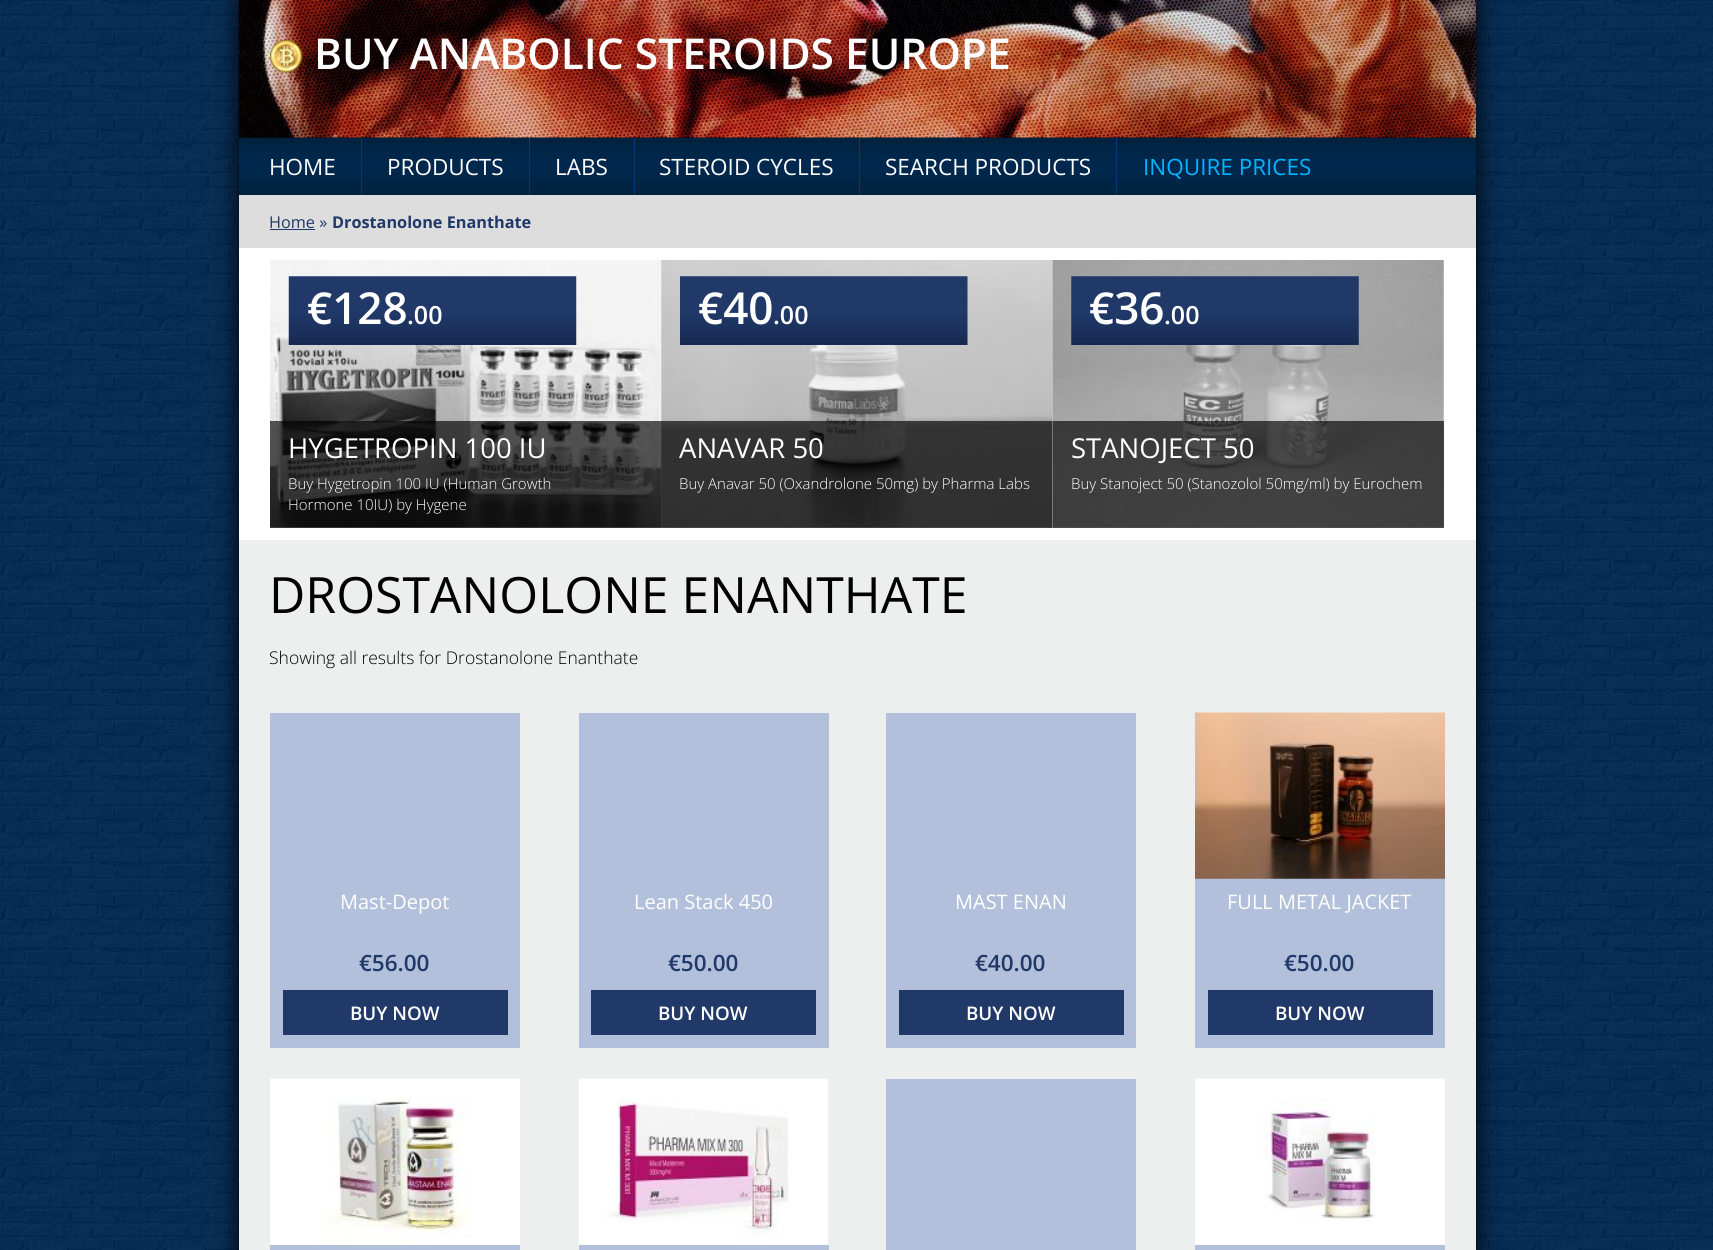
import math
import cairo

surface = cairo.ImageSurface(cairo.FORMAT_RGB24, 1713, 1250)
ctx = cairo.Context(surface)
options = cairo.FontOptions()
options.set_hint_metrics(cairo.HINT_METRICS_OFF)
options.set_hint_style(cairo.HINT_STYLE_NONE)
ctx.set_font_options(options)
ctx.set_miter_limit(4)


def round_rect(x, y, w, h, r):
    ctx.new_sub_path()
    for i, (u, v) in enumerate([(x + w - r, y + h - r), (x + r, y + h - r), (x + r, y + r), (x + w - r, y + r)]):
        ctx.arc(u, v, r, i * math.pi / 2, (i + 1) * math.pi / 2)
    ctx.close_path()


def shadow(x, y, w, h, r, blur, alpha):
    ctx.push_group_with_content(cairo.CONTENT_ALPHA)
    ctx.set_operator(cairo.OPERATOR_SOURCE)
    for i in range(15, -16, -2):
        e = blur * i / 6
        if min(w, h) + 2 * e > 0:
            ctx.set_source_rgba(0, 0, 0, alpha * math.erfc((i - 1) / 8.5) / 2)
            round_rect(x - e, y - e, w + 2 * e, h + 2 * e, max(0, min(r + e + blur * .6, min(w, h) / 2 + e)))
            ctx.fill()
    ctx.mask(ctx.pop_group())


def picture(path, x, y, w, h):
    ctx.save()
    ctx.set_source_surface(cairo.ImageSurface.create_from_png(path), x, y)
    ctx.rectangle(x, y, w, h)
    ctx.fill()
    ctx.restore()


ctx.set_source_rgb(1, 1, 1)
ctx.paint()
picture("img1.png", 0, 0, 1713, 1250)
ctx.set_source_rgb(0, 0, 0)
shadow(239, 0, 1237, 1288, 0, 12.5, 1)
picture("img4.png", 239, 137, 1237, 58)
picture("img2.png", 238, 0, 1239, 138)
picture("img3.png", 270, 40, 33, 33)
ctx.select_font_face("Open Sans SemiBold")
ctx.set_font_size(42.5)
ctx.set_source_rgb(1, 1, 1)
ctx.move_to(314, 69)
ctx.show_text("BUY ANABOLIC STEROIDS EUROPE")
ctx.select_font_face("Open Sans")
ctx.set_font_size(22.5)
ctx.move_to(269, 175)
ctx.show_text("HOME")
ctx.set_source_rgb(0, 0.227, 0.439)
ctx.rectangle(361, 138, 1, 57)
ctx.fill()
ctx.set_source_rgb(1, 1, 1)
ctx.move_to(387, 175)
ctx.show_text("PRODUCTS")
ctx.set_source_rgb(0, 0.227, 0.439)
ctx.rectangle(529, 138, 1, 57)
ctx.fill()
ctx.set_source_rgb(1, 1, 1)
ctx.move_to(555, 175)
ctx.show_text("LABS")
ctx.set_source_rgb(0, 0.227, 0.439)
ctx.rectangle(634, 138, 1, 57)
ctx.fill()
ctx.set_source_rgb(1, 1, 1)
ctx.move_to(659, 175)
ctx.show_text("STEROID CYCLES")
ctx.set_source_rgb(0, 0.227, 0.439)
ctx.rectangle(859, 138, 1, 57)
ctx.fill()
ctx.set_source_rgb(1, 1, 1)
ctx.move_to(885, 175)
ctx.show_text("SEARCH PRODUCTS")
ctx.set_source_rgb(0, 0.227, 0.439)
ctx.rectangle(1116, 138, 1, 57)
ctx.fill()
ctx.set_source_rgb(0, 0.706, 1)
ctx.move_to(1143, 175)
ctx.show_text("INQUIRE PRICES")
ctx.set_source_rgb(0.867, 0.867, 0.867)
ctx.rectangle(239, 195, 1237, 53)
ctx.fill()
ctx.set_font_size(16.25)
ctx.set_source_rgb(0.129, 0.224, 0.412)
ctx.move_to(269, 228)
ctx.show_text("Home »")
ctx.rectangle(270, 229, 45, 1)
ctx.fill()
ctx.select_font_face("Open Sans", cairo.FONT_SLANT_NORMAL, cairo.FONT_WEIGHT_BOLD)
ctx.move_to(332, 228)
ctx.show_text("Drostanolone Enanthate")
ctx.set_source_rgb(1, 1, 1)
ctx.rectangle(239, 248, 1237, 292)
ctx.fill()
picture("img5.png", 270, 260, 392, 268)
picture("img6.png", 288, 276, 289, 69)
ctx.select_font_face("Open Sans SemiBold")
ctx.set_font_size(44)
ctx.move_to(307, 324)
ctx.show_text("€128")
ctx.set_font_size(25)
ctx.move_to(407, 324)
ctx.show_text(".00")
ctx.set_source_rgba(0, 0, 0, 0.65)
ctx.rectangle(270, 421, 391, 107)
ctx.fill()
ctx.select_font_face("Open Sans")
ctx.set_font_size(27.5)
ctx.set_source_rgb(1, 1, 1)
ctx.move_to(288, 458)
ctx.show_text("HYGETROPIN 100 IU")
ctx.select_font_face("Open Sans Light")
ctx.set_font_size(15)
ctx.move_to(288, 489)
ctx.show_text("Buy Hygetropin 100 IU (Human Growth")
ctx.move_to(288, 510)
ctx.show_text("Hormone 10IU) by Hygene")
picture("img7.png", 661, 260, 392, 268)
picture("img8.png", 680, 276, 288, 69)
ctx.select_font_face("Open Sans SemiBold")
ctx.set_font_size(44)
ctx.move_to(698, 324)
ctx.show_text("€40")
ctx.set_font_size(25)
ctx.move_to(773, 324)
ctx.show_text(".00")
ctx.set_source_rgba(0, 0, 0, 0.65)
ctx.rectangle(661, 421, 392, 107)
ctx.fill()
ctx.select_font_face("Open Sans")
ctx.set_font_size(27.5)
ctx.set_source_rgb(1, 1, 1)
ctx.move_to(679, 458)
ctx.show_text("ANAVAR 50")
ctx.select_font_face("Open Sans Light")
ctx.set_font_size(15)
ctx.move_to(679, 489)
ctx.show_text("Buy Anavar 50 (Oxandrolone 50mg) by Pharma Labs")
picture("img9.png", 1052, 260, 392, 268)
picture("img10.png", 1071, 276, 288, 69)
ctx.select_font_face("Open Sans SemiBold")
ctx.set_font_size(44)
ctx.move_to(1089, 324)
ctx.show_text("€36")
ctx.set_font_size(25)
ctx.move_to(1164, 324)
ctx.show_text(".00")
ctx.set_source_rgba(0, 0, 0, 0.65)
ctx.rectangle(1053, 421, 391, 107)
ctx.fill()
ctx.select_font_face("Open Sans")
ctx.set_font_size(27.5)
ctx.set_source_rgb(1, 1, 1)
ctx.move_to(1071, 458)
ctx.show_text("STANOJECT 50")
ctx.select_font_face("Open Sans Light")
ctx.set_font_size(15)
ctx.move_to(1071, 489)
ctx.show_text("Buy Stanoject 50 (Stanozolol 50mg/ml) by Eurochem")
ctx.set_source_rgb(0.929, 0.937, 0.933)
ctx.rectangle(239, 540, 1237, 710)
ctx.fill()
ctx.select_font_face("Open Sans")
ctx.set_font_size(50)
ctx.set_source_rgb(0, 0, 0)
ctx.move_to(269, 613)
ctx.show_text("DROSTANOLONE ENANTHATE")
ctx.select_font_face("Open Sans Light")
ctx.set_font_size(17.5)
ctx.move_to(269, 664)
ctx.show_text("Showing all results for Drostanolone Enanthate")
ctx.set_source_rgb(0.702, 0.753, 0.859)
ctx.rectangle(270, 713, 250, 335)
ctx.fill()
ctx.select_font_face("Open Sans")
ctx.set_font_size(20)
ctx.set_source_rgb(1, 1, 1)
ctx.move_to(340, 909)
ctx.show_text("Mast-Depot")
ctx.select_font_face("Open Sans SemiBold")
ctx.set_font_size(22.5)
ctx.set_source_rgb(0.129, 0.224, 0.412)
ctx.move_to(359, 971)
ctx.show_text("€56.00")
ctx.rectangle(283, 990, 225, 45)
ctx.fill()
ctx.set_font_size(18.75)
ctx.set_source_rgb(1, 1, 1)
ctx.move_to(350, 1020)
ctx.show_text("BUY NOW")
ctx.set_source_rgb(0.702, 0.753, 0.859)
ctx.rectangle(579, 713, 250, 335)
ctx.fill()
ctx.select_font_face("Open Sans")
ctx.set_font_size(20)
ctx.set_source_rgb(1, 1, 1)
ctx.move_to(634, 909)
ctx.show_text("Lean Stack 450")
ctx.select_font_face("Open Sans SemiBold")
ctx.set_font_size(22.5)
ctx.set_source_rgb(0.129, 0.224, 0.412)
ctx.move_to(668, 971)
ctx.show_text("€50.00")
ctx.rectangle(591, 990, 225, 45)
ctx.fill()
ctx.set_font_size(18.75)
ctx.set_source_rgb(1, 1, 1)
ctx.move_to(658, 1020)
ctx.show_text("BUY NOW")
ctx.set_source_rgb(0.702, 0.753, 0.859)
ctx.rectangle(886, 713, 250, 335)
ctx.fill()
ctx.select_font_face("Open Sans")
ctx.set_font_size(20)
ctx.set_source_rgb(1, 1, 1)
ctx.move_to(955, 909)
ctx.show_text("MAST ENAN")
ctx.select_font_face("Open Sans SemiBold")
ctx.set_font_size(22.5)
ctx.set_source_rgb(0.129, 0.224, 0.412)
ctx.move_to(975, 971)
ctx.show_text("€40.00")
ctx.rectangle(899, 990, 225, 45)
ctx.fill()
ctx.set_font_size(18.75)
ctx.set_source_rgb(1, 1, 1)
ctx.move_to(966, 1020)
ctx.show_text("BUY NOW")
ctx.set_source_rgb(0.702, 0.753, 0.859)
ctx.rectangle(1195, 878, 250, 170)
ctx.fill()
picture("img11.png", 1195, 712, 250, 167)
ctx.select_font_face("Open Sans")
ctx.set_font_size(20)
ctx.set_source_rgb(1, 1, 1)
ctx.move_to(1227, 909)
ctx.show_text("FULL METAL JACKET")
ctx.select_font_face("Open Sans SemiBold")
ctx.set_font_size(22.5)
ctx.set_source_rgb(0.129, 0.224, 0.412)
ctx.move_to(1284, 971)
ctx.show_text("€50.00")
ctx.rectangle(1208, 990, 225, 45)
ctx.fill()
ctx.set_font_size(18.75)
ctx.set_source_rgb(1, 1, 1)
ctx.move_to(1275, 1020)
ctx.show_text("BUY NOW")
ctx.set_source_rgb(0.702, 0.753, 0.859)
ctx.rectangle(270, 1245, 250, 5)
ctx.fill()
picture("img12.png", 270, 1078, 250, 167)
ctx.rectangle(579, 1079, 250, 171)
ctx.fill()
picture("img13.png", 578, 1078, 251, 167)
ctx.rectangle(886, 1079, 250, 171)
ctx.fill()
ctx.rectangle(1195, 1245, 250, 5)
ctx.fill()
picture("img14.png", 1195, 1078, 250, 167)
surface.write_to_png("page.png")
